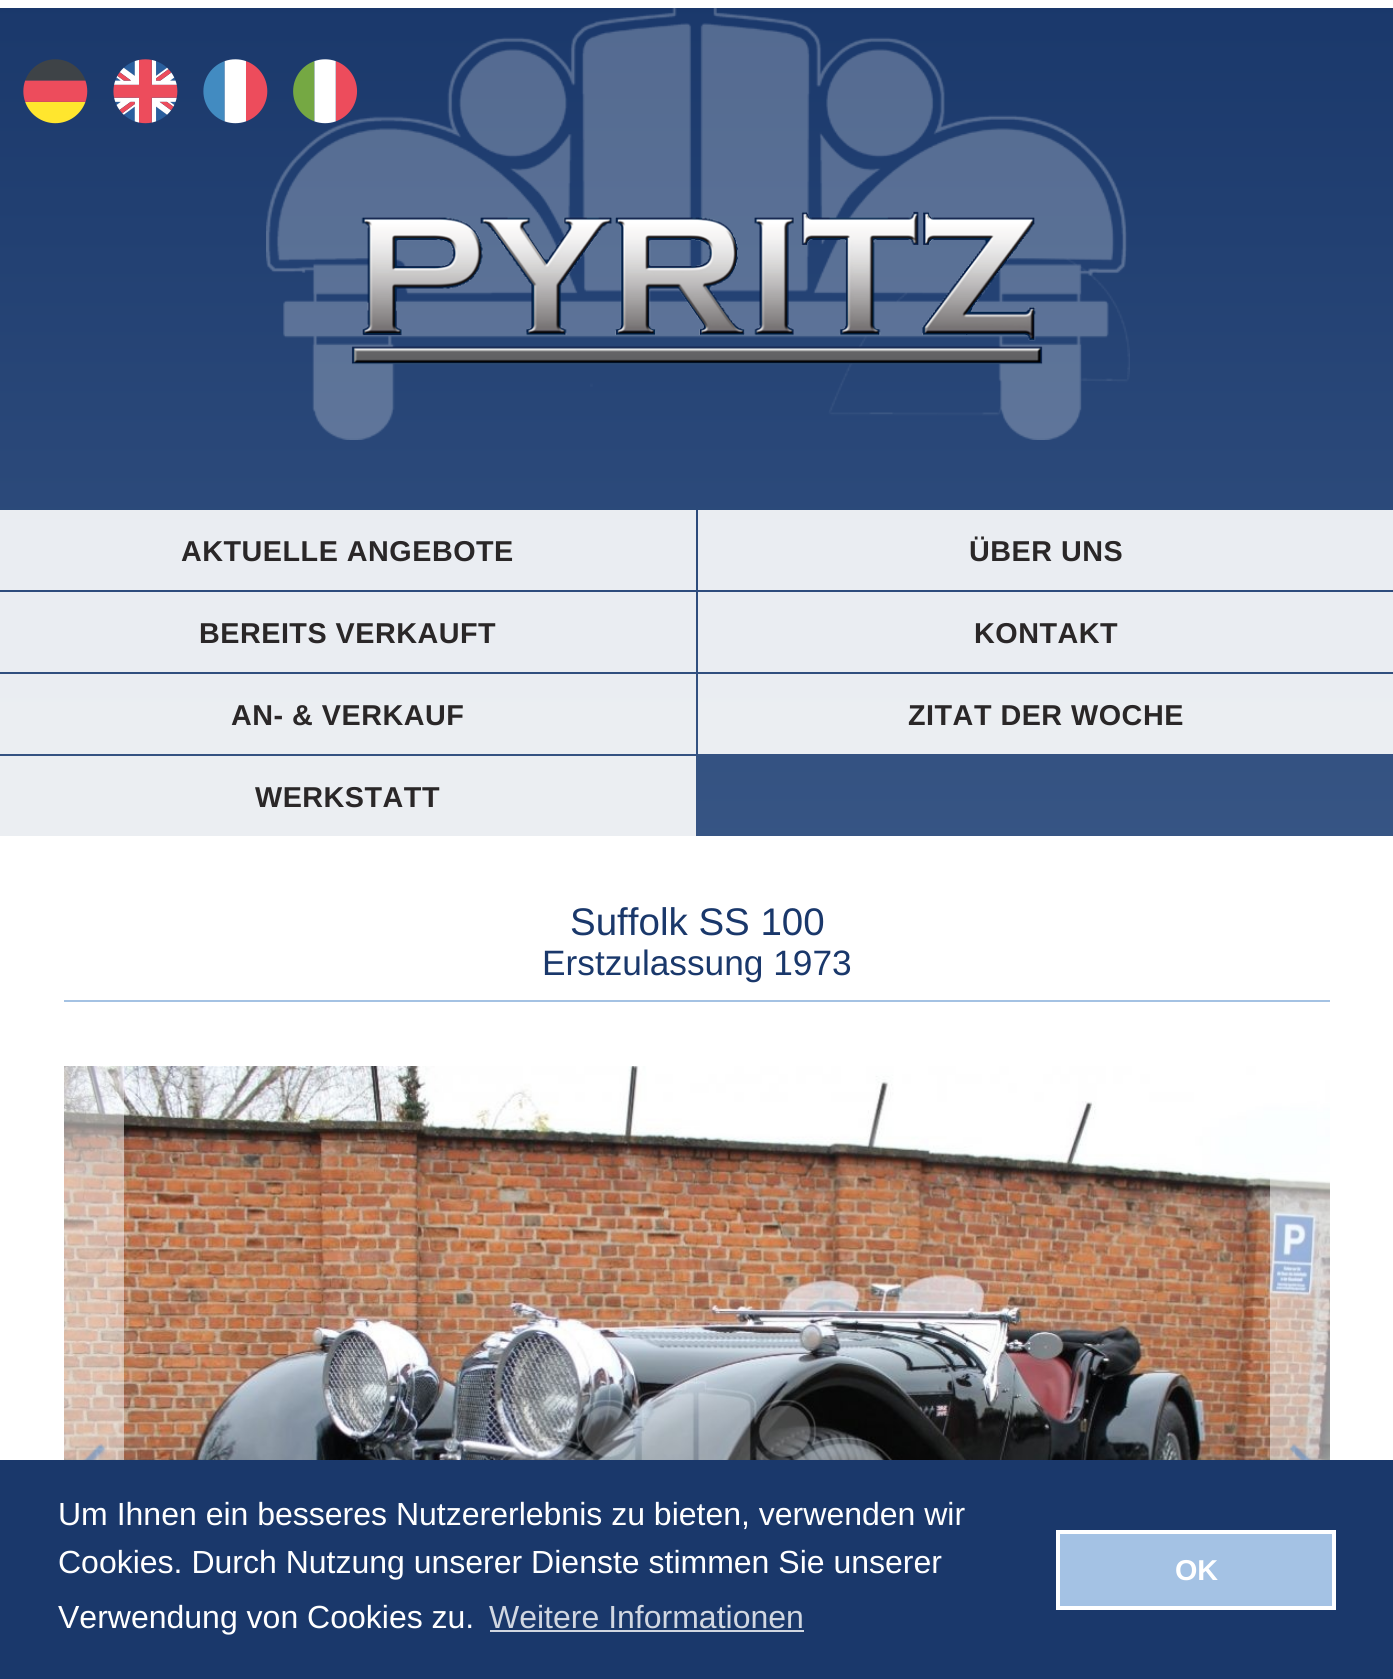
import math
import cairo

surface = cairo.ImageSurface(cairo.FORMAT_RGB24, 1393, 1679)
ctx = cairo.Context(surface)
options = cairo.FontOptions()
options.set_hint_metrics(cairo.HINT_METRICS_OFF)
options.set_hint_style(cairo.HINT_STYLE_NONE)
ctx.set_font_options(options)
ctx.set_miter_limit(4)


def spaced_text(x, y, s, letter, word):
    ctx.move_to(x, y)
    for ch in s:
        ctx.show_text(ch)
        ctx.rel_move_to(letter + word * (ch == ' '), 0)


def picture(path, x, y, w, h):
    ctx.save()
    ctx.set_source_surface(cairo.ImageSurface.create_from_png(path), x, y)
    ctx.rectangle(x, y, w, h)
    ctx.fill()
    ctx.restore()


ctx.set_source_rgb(1, 1, 1)
ctx.paint()
gradient = cairo.LinearGradient(0, 0, 0, 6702)
gradient.add_color_stop_rgba(0, 0.102, 0.22, 0.42, 1)
gradient.add_color_stop_rgba(0.6, 0.643, 0.761, 0.89, 1)
ctx.set_source(gradient)
ctx.rectangle(0, 8, 1393, 828)
ctx.fill()
gradient = cairo.LinearGradient(0, 0, 0, 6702)
gradient.add_color_stop_rgba(0, 0.91, 0.922, 0.941, 1)
gradient.add_color_stop_rgba(0.6, 0.965, 0.976, 0.988, 1)
ctx.set_source(gradient)
ctx.rectangle(698, 674, 695, 80)
ctx.fill()
ctx.rectangle(698, 592, 695, 80)
ctx.fill()
ctx.rectangle(698, 510, 695, 80)
ctx.fill()
ctx.rectangle(0, 756, 696, 80)
ctx.fill()
ctx.rectangle(0, 674, 696, 80)
ctx.fill()
ctx.rectangle(0, 592, 696, 80)
ctx.fill()
ctx.rectangle(0, 510, 696, 80)
ctx.fill()
picture("img1.png", 266, 8, 864, 432)
picture("img2.png", 23, 59, 65, 65)
picture("img3.png", 113, 59, 65, 65)
picture("img4.png", 203, 59, 65, 65)
picture("img5.png", 293, 59, 65, 65)
picture("img6.png", 351, 211, 692, 154)
ctx.select_font_face("Liberation Sans", cairo.FONT_SLANT_NORMAL, cairo.FONT_WEIGHT_BOLD)
ctx.set_font_size(28.75)
ctx.set_source_rgb(0.165, 0.153, 0.157)
spaced_text(181, 561, "AKTUELLE ANGEBOTE", 0.5, 0)
spaced_text(969, 561, "ÜBER UNS", 0.5, 0)
spaced_text(199, 643, "BEREITS VERKAUFT", 0.5, 0)
spaced_text(974, 643, "KONTAKT", 0.5, 0)
spaced_text(231, 725, "AN- & VERKAUF", 0.5, 0)
spaced_text(908, 725, "ZITAT DER WOCHE", 0.5, 0)
spaced_text(255, 807, "WERKSTATT", 0.5, 0)
ctx.set_source_rgb(0.643, 0.761, 0.89)
ctx.rectangle(64, 1000, 1266, 2)
ctx.fill()
ctx.select_font_face("Liberation Sans")
ctx.set_font_size(38.5)
ctx.set_source_rgb(0.102, 0.22, 0.42)
ctx.move_to(570, 935)
ctx.show_text("Suffolk SS 100")
ctx.set_font_size(35.25)
ctx.move_to(542, 975)
ctx.show_text("Erstzulassung 1973")
picture("img7.png", 64, 1066, 1266, 394)
ctx.set_source_rgba(1, 1, 1, 0.5)
ctx.rectangle(64, 1066, 60, 394)
ctx.fill()
picture("img8.png", 82, 1443, 25, 17)
ctx.rectangle(1270, 1172, 60, 288)
ctx.fill()
picture("img9.png", 1289, 1443, 24, 17)
ctx.set_source_rgb(0.102, 0.22, 0.42)
ctx.rectangle(0, 1460, 1393, 219)
ctx.fill()
ctx.set_font_size(32)
ctx.set_source_rgb(1, 1, 1)
ctx.move_to(58, 1525)
ctx.show_text("Um Ihnen ein besseres Nutzererlebnis zu bieten, verwenden wir")
ctx.move_to(58, 1573)
ctx.show_text("Cookies. Durch Nutzung unserer Dienste stimmen Sie unserer")
ctx.move_to(58, 1628)
ctx.show_text("Verwendung von Cookies zu.")
ctx.set_source_rgb(0.82, 0.843, 0.882)
ctx.move_to(489, 1628)
ctx.show_text("Weitere Informationen")
ctx.rectangle(490, 1630, 314, 2)
ctx.fill()
ctx.set_source_rgb(0.643, 0.761, 0.894)
ctx.rectangle(1058, 1532, 276, 76)
ctx.fill_preserve()
ctx.set_source_rgb(1, 1, 1)
ctx.set_line_width(4)
ctx.stroke()
ctx.select_font_face("Liberation Sans", cairo.FONT_SLANT_NORMAL, cairo.FONT_WEIGHT_BOLD)
ctx.set_font_size(28.75)
ctx.move_to(1175, 1580)
ctx.show_text("OK")
surface.write_to_png("page.png")
